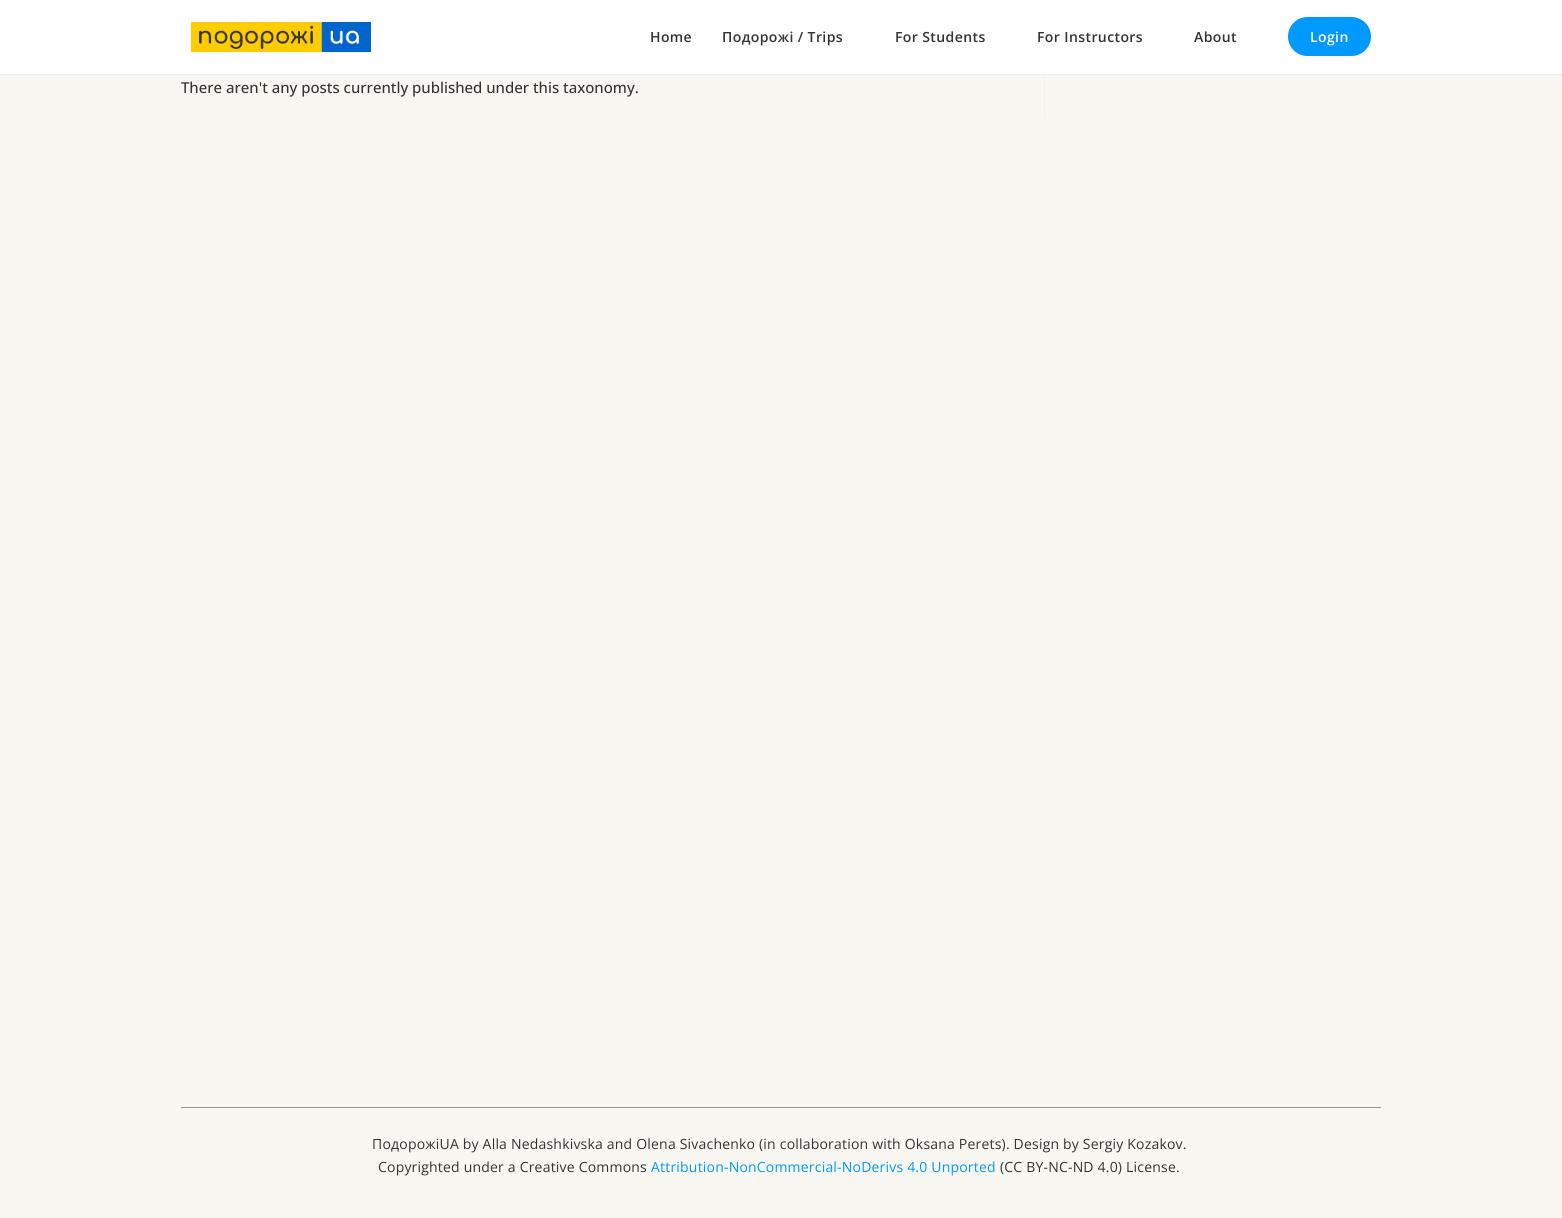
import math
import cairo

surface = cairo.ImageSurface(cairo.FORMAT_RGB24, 1562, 1218)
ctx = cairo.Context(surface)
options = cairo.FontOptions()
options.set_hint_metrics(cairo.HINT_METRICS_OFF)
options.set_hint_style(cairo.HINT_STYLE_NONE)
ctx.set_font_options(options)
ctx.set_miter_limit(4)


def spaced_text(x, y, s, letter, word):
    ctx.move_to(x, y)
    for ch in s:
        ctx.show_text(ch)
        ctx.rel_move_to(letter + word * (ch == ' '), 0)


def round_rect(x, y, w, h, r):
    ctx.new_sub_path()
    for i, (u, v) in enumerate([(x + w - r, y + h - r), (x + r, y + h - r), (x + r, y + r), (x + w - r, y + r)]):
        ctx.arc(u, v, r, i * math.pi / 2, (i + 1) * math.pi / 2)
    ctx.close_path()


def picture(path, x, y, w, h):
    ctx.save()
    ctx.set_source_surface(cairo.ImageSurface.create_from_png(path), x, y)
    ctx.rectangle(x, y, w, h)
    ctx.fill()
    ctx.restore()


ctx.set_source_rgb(0.969, 0.965, 0.949)
ctx.paint()
ctx.set_source_rgb(1, 1, 1)
ctx.rectangle(0, 0, 1562, 74)
ctx.fill()
ctx.set_source_rgb(0.945, 0.945, 0.945)
ctx.rectangle(0, 74, 1562, 1)
ctx.fill()
picture("img1.png", 191, 22, 180, 30)
ctx.select_font_face("Open Sans SemiBold")
ctx.set_font_size(14)
ctx.set_source_rgb(0.2, 0.2, 0.2)
spaced_text(650, 42, "Home", 0.4, 0)
spaced_text(722, 42, "Подорожі / Trips", 0.4, 0)
spaced_text(895, 42, "For Students", 0.4, 0)
spaced_text(1037, 42, "For Instructors", 0.4, 0)
spaced_text(1194, 42, "About", 0.4, 0)
ctx.set_source_rgb(0, 0.6, 1)
round_rect(1288, 17, 83, 39, 19.5)
ctx.fill()
ctx.set_source_rgb(1, 1, 1)
spaced_text(1310, 42, "Login", 0.4, 0)
ctx.set_source_rgb(0.945, 0.945, 0.945)
ctx.rectangle(1044, 75, 1, 44)
ctx.fill()
ctx.select_font_face("Open Sans Medium")
ctx.set_font_size(15)
ctx.set_source_rgb(0.2, 0.2, 0.2)
ctx.move_to(181, 93)
ctx.show_text("There aren't any posts currently published under this taxonomy.")
ctx.set_source_rgb(0.6, 0.6, 0.6)
ctx.rectangle(181, 1107, 1200, 1)
ctx.fill()
ctx.select_font_face("Open Sans")
ctx.set_font_size(14)
ctx.set_source_rgb(0.2, 0.2, 0.2)
spaced_text(372, 1149, "ПодорожіUA by Alla Nedashkivska and Olena Sivachenko (in collaboration with Oksana Perets). Design by Sergiy Kozakov.", 0.2, 0)
spaced_text(378, 1172, "Copyrighted under a Creative Commons", 0.2, 0)
ctx.set_source_rgb(0, 0.6, 1)
spaced_text(651, 1172, "Attribution-NonCommercial-NoDerivs 4.0 Unported", 0.2, 0)
ctx.set_source_rgb(0.2, 0.2, 0.2)
spaced_text(1000, 1172, "(CC BY-NC-ND 4.0) License.", 0.2, 0)
surface.write_to_png("page.png")
